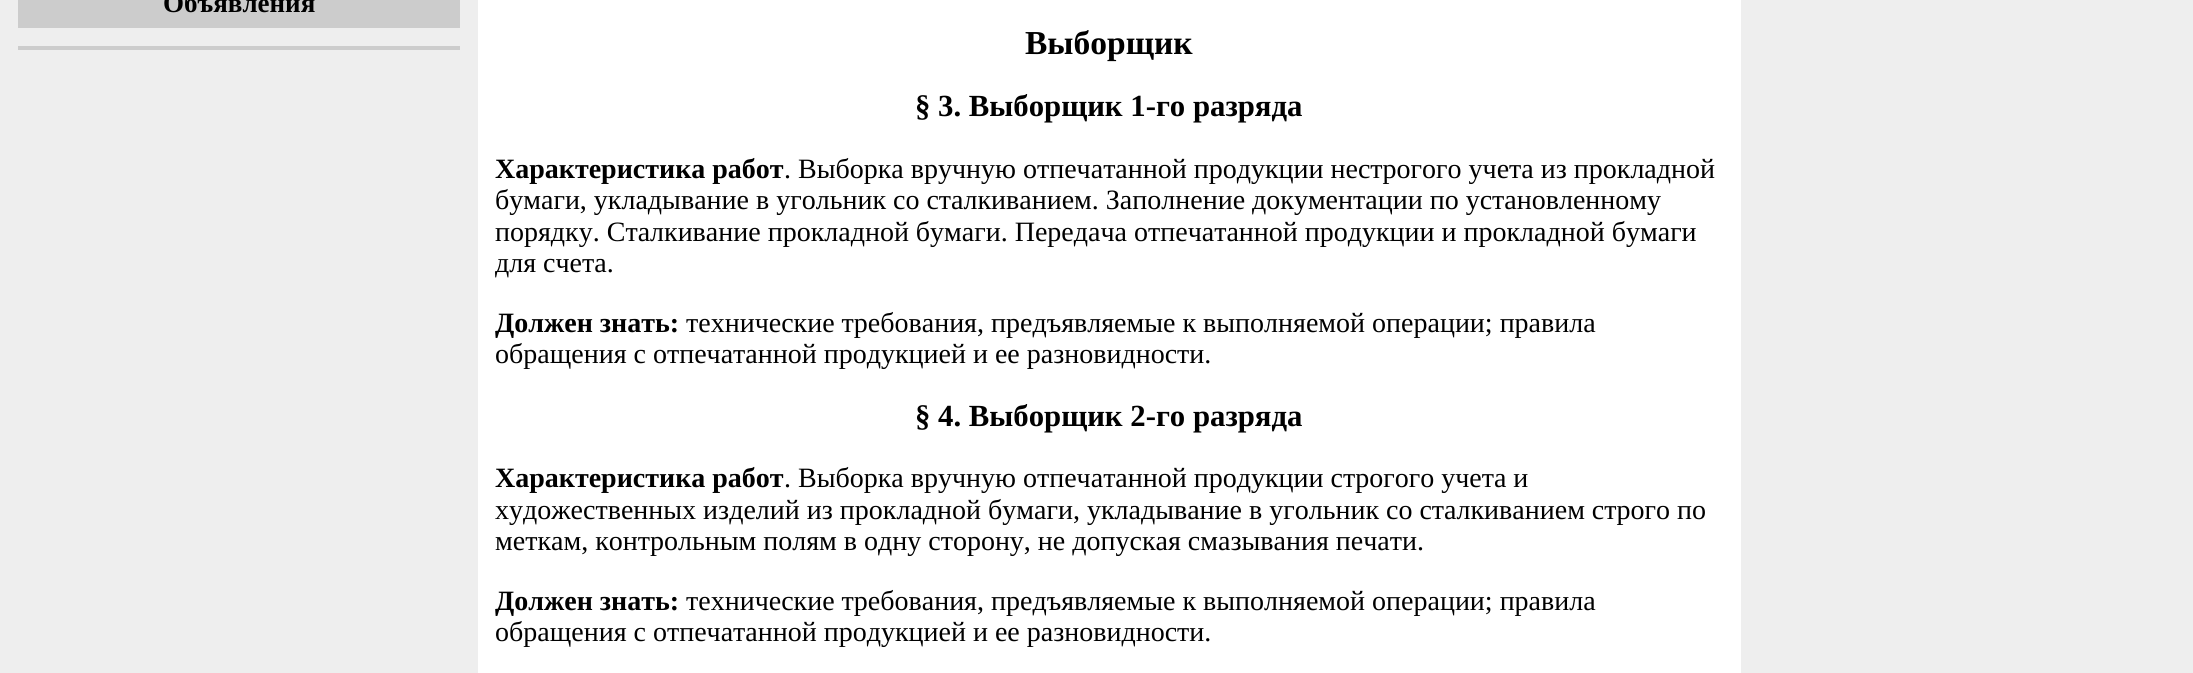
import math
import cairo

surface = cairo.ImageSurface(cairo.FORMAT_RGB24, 2193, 673)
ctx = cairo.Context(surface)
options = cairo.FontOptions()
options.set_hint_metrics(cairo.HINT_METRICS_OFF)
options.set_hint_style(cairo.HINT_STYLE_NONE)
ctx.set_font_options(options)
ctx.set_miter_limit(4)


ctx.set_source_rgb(1, 1, 1)
ctx.paint()
ctx.set_source_rgb(0.933, 0.933, 0.933)
ctx.rectangle(0, 0, 478, 673)
ctx.fill()
ctx.set_source_rgb(0.8, 0.8, 0.8)
ctx.rectangle(18, 46, 442, 4)
ctx.fill()
ctx.rectangle(18, 0, 442, 28)
ctx.fill()
ctx.select_font_face("Liberation Serif", cairo.FONT_SLANT_NORMAL, cairo.FONT_WEIGHT_BOLD)
ctx.set_font_size(27)
ctx.set_source_rgb(0, 0, 0)
ctx.move_to(163, 12)
ctx.show_text("Объявления")
ctx.set_font_size(33.5)
ctx.move_to(1025, 54)
ctx.show_text("Выборщик")
ctx.set_font_size(30.75)
ctx.move_to(915, 116)
ctx.show_text("§ 3. Выборщик 1-го разряда")
ctx.set_font_size(28)
ctx.move_to(495, 178)
ctx.show_text("Характеристика работ")
ctx.select_font_face("Liberation Serif")
ctx.move_to(784, 178)
ctx.show_text(". Выборка вручную отпечатанной продукции нестрогого учета из прокладной")
ctx.move_to(495, 209)
ctx.show_text("бумаги, укладывание в угольник со сталкиванием. Заполнение документации по установленному")
ctx.move_to(495, 241)
ctx.show_text("порядку. Сталкивание прокладной бумаги. Передача отпечатанной продукции и прокладной бумаги")
ctx.move_to(495, 272)
ctx.show_text("для счета.")
ctx.select_font_face("Liberation Serif", cairo.FONT_SLANT_NORMAL, cairo.FONT_WEIGHT_BOLD)
ctx.move_to(495, 332)
ctx.show_text("Должен знать:")
ctx.select_font_face("Liberation Serif")
ctx.move_to(686, 332)
ctx.show_text("технические требования, предъявляемые к выполняемой операции; правила")
ctx.move_to(495, 363)
ctx.show_text("обращения с отпечатанной продукцией и ее разновидности.")
ctx.select_font_face("Liberation Serif", cairo.FONT_SLANT_NORMAL, cairo.FONT_WEIGHT_BOLD)
ctx.set_font_size(30.75)
ctx.move_to(915, 426)
ctx.show_text("§ 4. Выборщик 2-го разряда")
ctx.set_font_size(28)
ctx.move_to(495, 487)
ctx.show_text("Характеристика работ")
ctx.select_font_face("Liberation Serif")
ctx.move_to(784, 487)
ctx.show_text(". Выборка вручную отпечатанной продукции строгого учета и")
ctx.move_to(495, 519)
ctx.show_text("художественных изделий из прокладной бумаги, укладывание в угольник со сталкиванием строго по")
ctx.move_to(495, 550)
ctx.show_text("меткам, контрольным полям в одну сторону, не допуская смазывания печати.")
ctx.select_font_face("Liberation Serif", cairo.FONT_SLANT_NORMAL, cairo.FONT_WEIGHT_BOLD)
ctx.move_to(495, 610)
ctx.show_text("Должен знать:")
ctx.select_font_face("Liberation Serif")
ctx.move_to(686, 610)
ctx.show_text("технические требования, предъявляемые к выполняемой операции; правила")
ctx.move_to(495, 641)
ctx.show_text("обращения с отпечатанной продукцией и ее разновидности.")
ctx.set_source_rgb(0.933, 0.933, 0.933)
ctx.rectangle(1741, 0, 452, 673)
ctx.fill()
surface.write_to_png("page.png")
